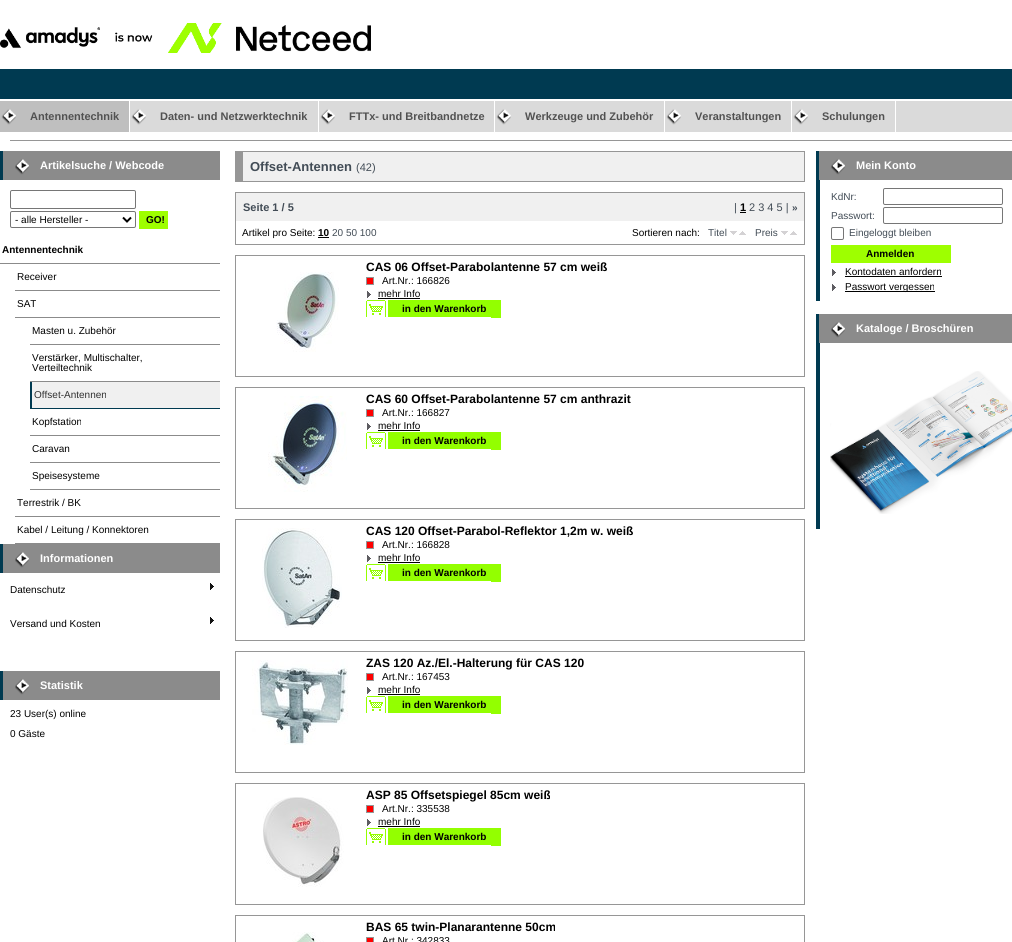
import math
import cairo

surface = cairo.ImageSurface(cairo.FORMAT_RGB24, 1012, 942)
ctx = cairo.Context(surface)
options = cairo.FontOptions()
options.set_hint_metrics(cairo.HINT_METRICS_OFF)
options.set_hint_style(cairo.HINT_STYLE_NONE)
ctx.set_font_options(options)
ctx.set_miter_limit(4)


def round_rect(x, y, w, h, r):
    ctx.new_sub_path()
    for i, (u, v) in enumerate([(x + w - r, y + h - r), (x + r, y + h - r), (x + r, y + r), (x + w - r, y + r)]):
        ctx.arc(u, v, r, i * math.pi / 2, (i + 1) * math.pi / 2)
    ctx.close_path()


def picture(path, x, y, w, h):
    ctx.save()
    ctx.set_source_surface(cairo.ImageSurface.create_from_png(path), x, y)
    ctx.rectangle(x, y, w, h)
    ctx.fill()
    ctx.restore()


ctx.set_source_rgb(1, 1, 1)
ctx.paint()
picture("img1.png", 0, 23, 371, 30)
ctx.set_source_rgb(0, 0.227, 0.318)
ctx.rectangle(0, 69, 1012, 30)
ctx.fill()
ctx.set_source_rgb(0.855, 0.855, 0.855)
ctx.rectangle(130, 101, 882, 31)
ctx.fill()
ctx.set_source_rgb(0.749, 0.749, 0.749)
ctx.rectangle(0, 101, 129, 31)
ctx.fill()
picture("img2.png", 1, 109, 15, 16)
ctx.select_font_face("Liberation Sans", cairo.FONT_SLANT_NORMAL, cairo.FONT_WEIGHT_BOLD)
ctx.set_font_size(11)
ctx.set_source_rgb(0.318, 0.318, 0.318)
ctx.move_to(30, 120)
ctx.show_text("Antennentechnik")
picture("img3.png", 131, 109, 15, 16)
ctx.set_source_rgb(1, 1, 1)
ctx.rectangle(318, 101, 1, 31)
ctx.fill()
ctx.set_source_rgb(0.318, 0.318, 0.318)
ctx.move_to(160, 120)
ctx.show_text("Daten- und Netzwerktechnik")
picture("img3.png", 320, 109, 15, 16)
ctx.set_source_rgb(1, 1, 1)
ctx.rectangle(494, 101, 1, 31)
ctx.fill()
ctx.set_source_rgb(0.318, 0.318, 0.318)
ctx.move_to(349, 120)
ctx.show_text("FTTx- und Breitbandnetze")
picture("img3.png", 496, 109, 15, 16)
ctx.set_source_rgb(1, 1, 1)
ctx.rectangle(664, 101, 1, 31)
ctx.fill()
ctx.set_source_rgb(0.318, 0.318, 0.318)
ctx.move_to(525, 120)
ctx.show_text("Werkzeuge und Zubehör")
picture("img3.png", 666, 109, 15, 16)
ctx.set_source_rgb(1, 1, 1)
ctx.rectangle(791, 101, 1, 31)
ctx.fill()
ctx.set_source_rgb(0.318, 0.318, 0.318)
ctx.move_to(695, 120)
ctx.show_text("Veranstaltungen")
picture("img3.png", 793, 109, 15, 16)
ctx.set_source_rgb(1, 1, 1)
ctx.rectangle(895, 101, 1, 31)
ctx.fill()
ctx.set_source_rgb(0.318, 0.318, 0.318)
ctx.move_to(822, 120)
ctx.show_text("Schulungen")
ctx.set_source_rgb(0.588, 0.588, 0.588)
ctx.rectangle(10, 140, 1002, 1)
ctx.fill()
ctx.set_source_rgb(0.545, 0.545, 0.545)
ctx.rectangle(3, 151, 217, 29)
ctx.fill()
picture("img4.png", 15, 159, 14, 16)
ctx.set_source_rgb(0, 0.227, 0.318)
ctx.rectangle(0, 151, 3, 29)
ctx.fill()
ctx.set_source_rgb(1, 1, 1)
ctx.move_to(40, 169)
ctx.show_text("Artikelsuche / Webcode")
round_rect(10.5, 190.5, 125, 18, 1.5)
ctx.set_source_rgb(0.463, 0.463, 0.463)
ctx.set_line_width(1)
ctx.stroke()
round_rect(10.5, 211.5, 125, 16, 1.5)
ctx.stroke()
ctx.new_path()
ctx.move_to(123, 217.5)
ctx.line_to(127, 221.5)
ctx.line_to(131, 217.5)
ctx.set_source_rgb(0, 0, 0)
ctx.set_line_width(2)
ctx.stroke()
ctx.select_font_face("Liberation Sans")
ctx.set_font_size(10)
ctx.move_to(15, 223)
ctx.show_text("- alle Hersteller -")
ctx.set_source_rgb(0.62, 1, 0)
ctx.rectangle(139, 211, 29, 18)
ctx.fill()
ctx.select_font_face("Liberation Sans", cairo.FONT_SLANT_NORMAL, cairo.FONT_WEIGHT_BOLD)
ctx.set_source_rgb(0, 0, 0)
ctx.move_to(146, 223)
ctx.show_text("GO!")
ctx.set_source_rgb(0.545, 0.545, 0.545)
ctx.rectangle(0, 263, 220, 1)
ctx.fill()
ctx.set_source_rgb(0, 0, 0)
ctx.move_to(2, 253)
ctx.show_text("Antennentechnik")
ctx.set_source_rgb(0.545, 0.545, 0.545)
ctx.rectangle(15, 290, 205, 1)
ctx.fill()
ctx.select_font_face("Liberation Sans")
ctx.set_source_rgb(0, 0, 0)
ctx.move_to(17, 280)
ctx.show_text("Receiver")
ctx.set_source_rgb(0.545, 0.545, 0.545)
ctx.rectangle(15, 317, 205, 1)
ctx.fill()
ctx.set_source_rgb(0, 0, 0)
ctx.move_to(17, 307)
ctx.show_text("SAT")
ctx.set_source_rgb(0.545, 0.545, 0.545)
ctx.rectangle(30, 344, 190, 1)
ctx.fill()
ctx.set_source_rgb(0, 0, 0)
ctx.move_to(32, 334)
ctx.show_text("Masten u. Zubehör")
ctx.set_source_rgb(0.545, 0.545, 0.545)
ctx.rectangle(30, 381, 190, 1)
ctx.fill()
ctx.set_source_rgb(0, 0, 0)
ctx.move_to(32, 361)
ctx.show_text("Verstärker, Multischalter,")
ctx.move_to(32, 371)
ctx.show_text("Verteiltechnik")
ctx.set_source_rgb(0.941, 0.941, 0.941)
ctx.rectangle(32, 382, 188, 26)
ctx.fill()
ctx.set_source_rgb(0, 0.227, 0.318)
ctx.rectangle(30, 408, 190, 1)
ctx.fill()
ctx.rectangle(30, 382, 2, 27)
ctx.fill()
ctx.set_source_rgb(0.196, 0.196, 0.196)
ctx.move_to(34, 398)
ctx.show_text("Offset-Antennen")
ctx.set_source_rgb(0.545, 0.545, 0.545)
ctx.rectangle(30, 435, 190, 1)
ctx.fill()
ctx.set_source_rgb(0, 0, 0)
ctx.move_to(32, 425)
ctx.show_text("Kopfstation")
ctx.set_source_rgb(0.545, 0.545, 0.545)
ctx.rectangle(30, 462, 190, 1)
ctx.fill()
ctx.set_source_rgb(0, 0, 0)
ctx.move_to(32, 452)
ctx.show_text("Caravan")
ctx.set_source_rgb(0.545, 0.545, 0.545)
ctx.rectangle(30, 489, 190, 1)
ctx.fill()
ctx.set_source_rgb(0, 0, 0)
ctx.move_to(32, 479)
ctx.show_text("Speisesysteme")
ctx.set_source_rgb(0.545, 0.545, 0.545)
ctx.rectangle(15, 516, 205, 1)
ctx.fill()
ctx.set_source_rgb(0, 0, 0)
ctx.move_to(17, 506)
ctx.show_text("Terrestrik / BK")
ctx.set_source_rgb(0.545, 0.545, 0.545)
ctx.rectangle(15, 543, 205, 1)
ctx.fill()
ctx.set_source_rgb(0, 0, 0)
ctx.move_to(17, 533)
ctx.show_text("Kabel / Leitung / Konnektoren")
ctx.set_source_rgb(0.545, 0.545, 0.545)
ctx.rectangle(3, 544, 217, 29)
ctx.fill()
picture("img4.png", 15, 552, 14, 16)
ctx.set_source_rgb(0, 0.227, 0.318)
ctx.rectangle(0, 544, 3, 29)
ctx.fill()
ctx.select_font_face("Liberation Sans", cairo.FONT_SLANT_NORMAL, cairo.FONT_WEIGHT_BOLD)
ctx.set_font_size(11)
ctx.set_source_rgb(1, 1, 1)
ctx.move_to(40, 562)
ctx.show_text("Informationen")
picture("img5.png", 210, 583, 4, 7)
ctx.select_font_face("Liberation Sans")
ctx.set_font_size(10)
ctx.set_source_rgb(0, 0, 0)
ctx.move_to(10, 593)
ctx.show_text("Datenschutz")
picture("img5.png", 210, 617, 4, 7)
ctx.move_to(10, 627)
ctx.show_text("Versand und Kosten")
ctx.set_source_rgb(0.545, 0.545, 0.545)
ctx.rectangle(3, 671, 217, 29)
ctx.fill()
picture("img4.png", 15, 679, 14, 16)
ctx.set_source_rgb(0, 0.227, 0.318)
ctx.rectangle(0, 671, 3, 29)
ctx.fill()
ctx.select_font_face("Liberation Sans", cairo.FONT_SLANT_NORMAL, cairo.FONT_WEIGHT_BOLD)
ctx.set_font_size(11)
ctx.set_source_rgb(1, 1, 1)
ctx.move_to(40, 689)
ctx.show_text("Statistik")
ctx.select_font_face("Liberation Sans")
ctx.set_font_size(10)
ctx.set_source_rgb(0, 0, 0)
ctx.move_to(10, 717)
ctx.show_text("23 User(s) online")
ctx.move_to(10, 737)
ctx.show_text("0 Gäste")
ctx.set_source_rgb(0.941, 0.941, 0.941)
ctx.rectangle(243, 152, 561, 29)
ctx.fill()
ctx.set_source_rgb(0.588, 0.588, 0.588)
ctx.rectangle(235, 151, 570, 1)
ctx.fill()
ctx.rectangle(804, 151, 1, 30)
ctx.fill()
ctx.rectangle(235, 151, 8, 30)
ctx.fill()
ctx.select_font_face("Liberation Sans", cairo.FONT_SLANT_NORMAL, cairo.FONT_WEIGHT_BOLD)
ctx.set_font_size(13)
ctx.set_source_rgb(0.259, 0.298, 0.337)
ctx.move_to(250, 171)
ctx.show_text("Offset-Antennen")
ctx.select_font_face("Liberation Sans")
ctx.set_font_size(11)
ctx.move_to(356, 171)
ctx.show_text("(42)")
ctx.set_source_rgb(0.588, 0.588, 0.588)
ctx.rectangle(235, 181, 570, 1)
ctx.fill()
ctx.rectangle(235.5, 192.5, 569, 52)
ctx.set_line_width(1)
ctx.stroke()
ctx.set_source_rgb(0.941, 0.941, 0.941)
ctx.rectangle(236, 193, 568, 28)
ctx.fill()
ctx.select_font_face("Liberation Sans", cairo.FONT_SLANT_NORMAL, cairo.FONT_WEIGHT_BOLD)
ctx.set_source_rgb(0.259, 0.298, 0.337)
ctx.move_to(243, 211)
ctx.show_text("Seite 1 / 5")
ctx.select_font_face("Liberation Sans")
ctx.move_to(734, 211)
ctx.show_text("|")
ctx.select_font_face("Liberation Sans", cairo.FONT_SLANT_NORMAL, cairo.FONT_WEIGHT_BOLD)
ctx.set_source_rgb(0, 0, 0)
ctx.move_to(740, 211)
ctx.show_text("1")
ctx.rectangle(740, 212, 6, 1)
ctx.fill()
ctx.select_font_face("Liberation Sans")
ctx.set_source_rgb(0.259, 0.298, 0.337)
ctx.move_to(749, 211)
ctx.show_text("2 3 4 5 |")
ctx.select_font_face("Liberation Sans", cairo.FONT_SLANT_NORMAL, cairo.FONT_WEIGHT_BOLD)
ctx.set_font_size(10)
ctx.move_to(792, 211)
ctx.show_text("»")
ctx.select_font_face("Liberation Sans")
ctx.set_source_rgb(0, 0, 0)
ctx.move_to(242, 236)
ctx.show_text("Artikel pro Seite:")
ctx.select_font_face("Liberation Sans", cairo.FONT_SLANT_NORMAL, cairo.FONT_WEIGHT_BOLD)
ctx.move_to(318, 236)
ctx.show_text("10")
ctx.rectangle(318, 237, 11, 1)
ctx.fill()
ctx.select_font_face("Liberation Sans")
ctx.set_source_rgb(0.259, 0.298, 0.337)
ctx.move_to(332, 236)
ctx.show_text("20 50 100")
ctx.set_source_rgb(0, 0, 0)
ctx.move_to(632, 236)
ctx.show_text("Sortieren nach:")
ctx.set_source_rgb(0.259, 0.298, 0.337)
ctx.move_to(708, 236)
ctx.show_text("Titel")
picture("img6.png", 730, 231, 16, 4)
ctx.move_to(755, 236)
ctx.show_text("Preis")
picture("img6.png", 781, 231, 16, 4)
ctx.rectangle(235.5, 255.5, 569, 121)
ctx.set_source_rgb(0.588, 0.588, 0.588)
ctx.stroke()
ctx.select_font_face("Liberation Sans", cairo.FONT_SLANT_NORMAL, cairo.FONT_WEIGHT_BOLD)
ctx.set_font_size(12)
ctx.set_source_rgb(0, 0, 0)
ctx.move_to(366, 271)
ctx.show_text("CAS 06 Offset-Parabolantenne 57 cm weiß")
picture("img7.png", 276, 272, 63, 80)
ctx.set_source_rgb(1, 0, 0)
ctx.rectangle(366.5, 277.5, 7, 7)
ctx.fill_preserve()
ctx.set_source_rgb(0.588, 0.588, 0.588)
ctx.stroke()
ctx.select_font_face("Liberation Sans")
ctx.set_font_size(10)
ctx.set_source_rgb(0, 0, 0)
ctx.move_to(382, 284)
ctx.show_text("Art.Nr.: 166826")
picture("img8.png", 367, 291, 4, 7)
ctx.move_to(378, 297)
ctx.show_text("mehr Info")
ctx.rectangle(378, 298, 42, 1)
ctx.fill()
ctx.set_source_rgb(0.576, 1, 0)
ctx.rectangle(491, 300, 10, 18)
ctx.fill()
picture("img9.png", 366, 300, 125, 17)
ctx.select_font_face("Liberation Sans", cairo.FONT_SLANT_NORMAL, cairo.FONT_WEIGHT_BOLD)
ctx.set_source_rgb(0, 0, 0)
ctx.move_to(402, 312)
ctx.show_text("in den Warenkorb")
ctx.rectangle(235.5, 387.5, 569, 121)
ctx.set_source_rgb(0.588, 0.588, 0.588)
ctx.stroke()
picture("img10.png", 268, 396, 79, 96)
ctx.set_font_size(12)
ctx.set_source_rgb(0, 0, 0)
ctx.move_to(366, 403)
ctx.show_text("CAS 60 Offset-Parabolantenne 57 cm anthrazit")
ctx.set_source_rgb(1, 0, 0)
ctx.rectangle(366.5, 409.5, 7, 7)
ctx.fill_preserve()
ctx.set_source_rgb(0.588, 0.588, 0.588)
ctx.stroke()
ctx.select_font_face("Liberation Sans")
ctx.set_font_size(10)
ctx.set_source_rgb(0, 0, 0)
ctx.move_to(382, 416)
ctx.show_text("Art.Nr.: 166827")
picture("img8.png", 367, 423, 4, 7)
ctx.move_to(378, 429)
ctx.show_text("mehr Info")
ctx.rectangle(378, 430, 42, 1)
ctx.fill()
ctx.set_source_rgb(0.576, 1, 0)
ctx.rectangle(491, 432, 10, 18)
ctx.fill()
picture("img9.png", 366, 432, 125, 17)
ctx.select_font_face("Liberation Sans", cairo.FONT_SLANT_NORMAL, cairo.FONT_WEIGHT_BOLD)
ctx.set_source_rgb(0, 0, 0)
ctx.move_to(402, 444)
ctx.show_text("in den Warenkorb")
ctx.rectangle(235.5, 519.5, 569, 121)
ctx.set_source_rgb(0.588, 0.588, 0.588)
ctx.stroke()
picture("img11.png", 262, 528, 80, 100)
ctx.set_font_size(12)
ctx.set_source_rgb(0, 0, 0)
ctx.move_to(366, 535)
ctx.show_text("CAS 120 Offset-Parabol-Reflektor 1,2m w. weiß")
ctx.set_source_rgb(1, 0, 0)
ctx.rectangle(366.5, 541.5, 7, 7)
ctx.fill_preserve()
ctx.set_source_rgb(0.588, 0.588, 0.588)
ctx.stroke()
ctx.select_font_face("Liberation Sans")
ctx.set_font_size(10)
ctx.set_source_rgb(0, 0, 0)
ctx.move_to(382, 548)
ctx.show_text("Art.Nr.: 166828")
picture("img8.png", 367, 555, 4, 7)
ctx.move_to(378, 561)
ctx.show_text("mehr Info")
ctx.rectangle(378, 562, 42, 1)
ctx.fill()
ctx.set_source_rgb(0.576, 1, 0)
ctx.rectangle(491, 564, 10, 18)
ctx.fill()
picture("img9.png", 366, 564, 125, 17)
ctx.select_font_face("Liberation Sans", cairo.FONT_SLANT_NORMAL, cairo.FONT_WEIGHT_BOLD)
ctx.set_source_rgb(0, 0, 0)
ctx.move_to(402, 576)
ctx.show_text("in den Warenkorb")
ctx.rectangle(235.5, 651.5, 569, 121)
ctx.set_source_rgb(0.588, 0.588, 0.588)
ctx.stroke()
picture("img12.png", 252, 660, 96, 85)
ctx.set_font_size(12)
ctx.set_source_rgb(0, 0, 0)
ctx.move_to(366, 667)
ctx.show_text("ZAS 120 Az./El.-Halterung für CAS 120")
ctx.set_source_rgb(1, 0, 0)
ctx.rectangle(366.5, 673.5, 7, 7)
ctx.fill_preserve()
ctx.set_source_rgb(0.588, 0.588, 0.588)
ctx.stroke()
ctx.select_font_face("Liberation Sans")
ctx.set_font_size(10)
ctx.set_source_rgb(0, 0, 0)
ctx.move_to(382, 680)
ctx.show_text("Art.Nr.: 167453")
picture("img8.png", 367, 687, 4, 7)
ctx.move_to(378, 693)
ctx.show_text("mehr Info")
ctx.rectangle(378, 694, 42, 1)
ctx.fill()
ctx.set_source_rgb(0.576, 1, 0)
ctx.rectangle(491, 696, 10, 18)
ctx.fill()
picture("img9.png", 366, 696, 125, 17)
ctx.select_font_face("Liberation Sans", cairo.FONT_SLANT_NORMAL, cairo.FONT_WEIGHT_BOLD)
ctx.set_source_rgb(0, 0, 0)
ctx.move_to(402, 708)
ctx.show_text("in den Warenkorb")
ctx.rectangle(235.5, 783.5, 569, 121)
ctx.set_source_rgb(0.588, 0.588, 0.588)
ctx.stroke()
picture("img13.png", 263, 797, 81, 90)
ctx.set_font_size(12)
ctx.set_source_rgb(0, 0, 0)
ctx.move_to(366, 799)
ctx.show_text("ASP 85 Offsetspiegel 85cm weiß")
ctx.set_source_rgb(1, 0, 0)
ctx.rectangle(366.5, 805.5, 7, 7)
ctx.fill_preserve()
ctx.set_source_rgb(0.588, 0.588, 0.588)
ctx.stroke()
ctx.select_font_face("Liberation Sans")
ctx.set_font_size(10)
ctx.set_source_rgb(0, 0, 0)
ctx.move_to(382, 812)
ctx.show_text("Art.Nr.: 335538")
picture("img8.png", 367, 819, 4, 7)
ctx.move_to(378, 825)
ctx.show_text("mehr Info")
ctx.rectangle(378, 826, 42, 1)
ctx.fill()
ctx.set_source_rgb(0.576, 1, 0)
ctx.rectangle(491, 828, 10, 18)
ctx.fill()
picture("img9.png", 366, 828, 125, 17)
ctx.select_font_face("Liberation Sans", cairo.FONT_SLANT_NORMAL, cairo.FONT_WEIGHT_BOLD)
ctx.set_source_rgb(0, 0, 0)
ctx.move_to(402, 840)
ctx.show_text("in den Warenkorb")
ctx.rectangle(235.5, 915.5, 569, 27)
ctx.set_source_rgb(0.588, 0.588, 0.588)
ctx.stroke()
ctx.set_font_size(12)
ctx.set_source_rgb(0, 0, 0)
ctx.move_to(366, 931)
ctx.show_text("BAS 65 twin-Planarantenne 50cm")
picture("img14.png", 292, 932, 32, 10)
ctx.set_source_rgb(1, 0, 0)
ctx.rectangle(366.5, 937.5, 7, 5)
ctx.fill_preserve()
ctx.set_source_rgb(0.588, 0.588, 0.588)
ctx.stroke()
ctx.select_font_face("Liberation Sans")
ctx.set_font_size(10)
ctx.set_source_rgb(0, 0, 0)
ctx.move_to(382, 944)
ctx.show_text("Art.Nr.: 342833")
ctx.set_source_rgb(0.545, 0.545, 0.545)
ctx.rectangle(819, 151, 193, 29)
ctx.fill()
picture("img4.png", 831, 159, 14, 16)
ctx.set_source_rgb(0, 0.227, 0.318)
ctx.rectangle(816, 151, 3, 29)
ctx.fill()
ctx.select_font_face("Liberation Sans", cairo.FONT_SLANT_NORMAL, cairo.FONT_WEIGHT_BOLD)
ctx.set_font_size(11)
ctx.set_source_rgb(1, 1, 1)
ctx.move_to(856, 169)
ctx.show_text("Mein Konto")
ctx.set_source_rgb(0, 0.227, 0.318)
ctx.rectangle(816, 180, 4, 121)
ctx.fill()
ctx.select_font_face("Liberation Sans")
ctx.set_font_size(10)
ctx.set_source_rgb(0.259, 0.298, 0.337)
ctx.move_to(831, 200)
ctx.show_text("KdNr:")
round_rect(883.5, 188.5, 119, 16, 1.5)
ctx.set_source_rgb(0.463, 0.463, 0.463)
ctx.stroke()
ctx.set_source_rgb(0.259, 0.298, 0.337)
ctx.move_to(831, 219)
ctx.show_text("Passwort:")
round_rect(883.5, 207.5, 119, 16, 1.5)
ctx.set_source_rgb(0.463, 0.463, 0.463)
ctx.stroke()
round_rect(831.5, 227.5, 12, 12, 1.5)
ctx.stroke()
ctx.set_source_rgb(0.259, 0.298, 0.337)
ctx.move_to(849, 236)
ctx.show_text("Eingeloggt bleiben")
ctx.set_source_rgb(0.62, 1, 0)
ctx.rectangle(831, 245, 120, 18)
ctx.fill()
ctx.select_font_face("Liberation Sans", cairo.FONT_SLANT_NORMAL, cairo.FONT_WEIGHT_BOLD)
ctx.set_source_rgb(0, 0, 0)
ctx.move_to(866, 257)
ctx.show_text("Anmelden")
picture("img8.png", 832, 269, 4, 7)
ctx.select_font_face("Liberation Sans")
ctx.move_to(845, 275)
ctx.show_text("Kontodaten anfordern")
ctx.rectangle(845, 276, 97, 1)
ctx.fill()
picture("img8.png", 832, 284, 4, 7)
ctx.rectangle(845, 291, 90, 1)
ctx.fill()
ctx.move_to(845, 290)
ctx.show_text("Passwort vergessen")
ctx.set_source_rgb(0.545, 0.545, 0.545)
ctx.rectangle(819, 314, 193, 29)
ctx.fill()
picture("img4.png", 831, 322, 14, 16)
ctx.set_source_rgb(0, 0.227, 0.318)
ctx.rectangle(816, 314, 3, 29)
ctx.fill()
ctx.select_font_face("Liberation Sans", cairo.FONT_SLANT_NORMAL, cairo.FONT_WEIGHT_BOLD)
ctx.set_font_size(11)
ctx.set_source_rgb(1, 1, 1)
ctx.move_to(856, 332)
ctx.show_text("Kataloge / Broschüren")
ctx.set_source_rgb(0, 0.227, 0.318)
ctx.rectangle(816, 343, 4, 186)
ctx.fill()
picture("img15.png", 830, 371, 182, 143)
surface.write_to_png("page.png")
